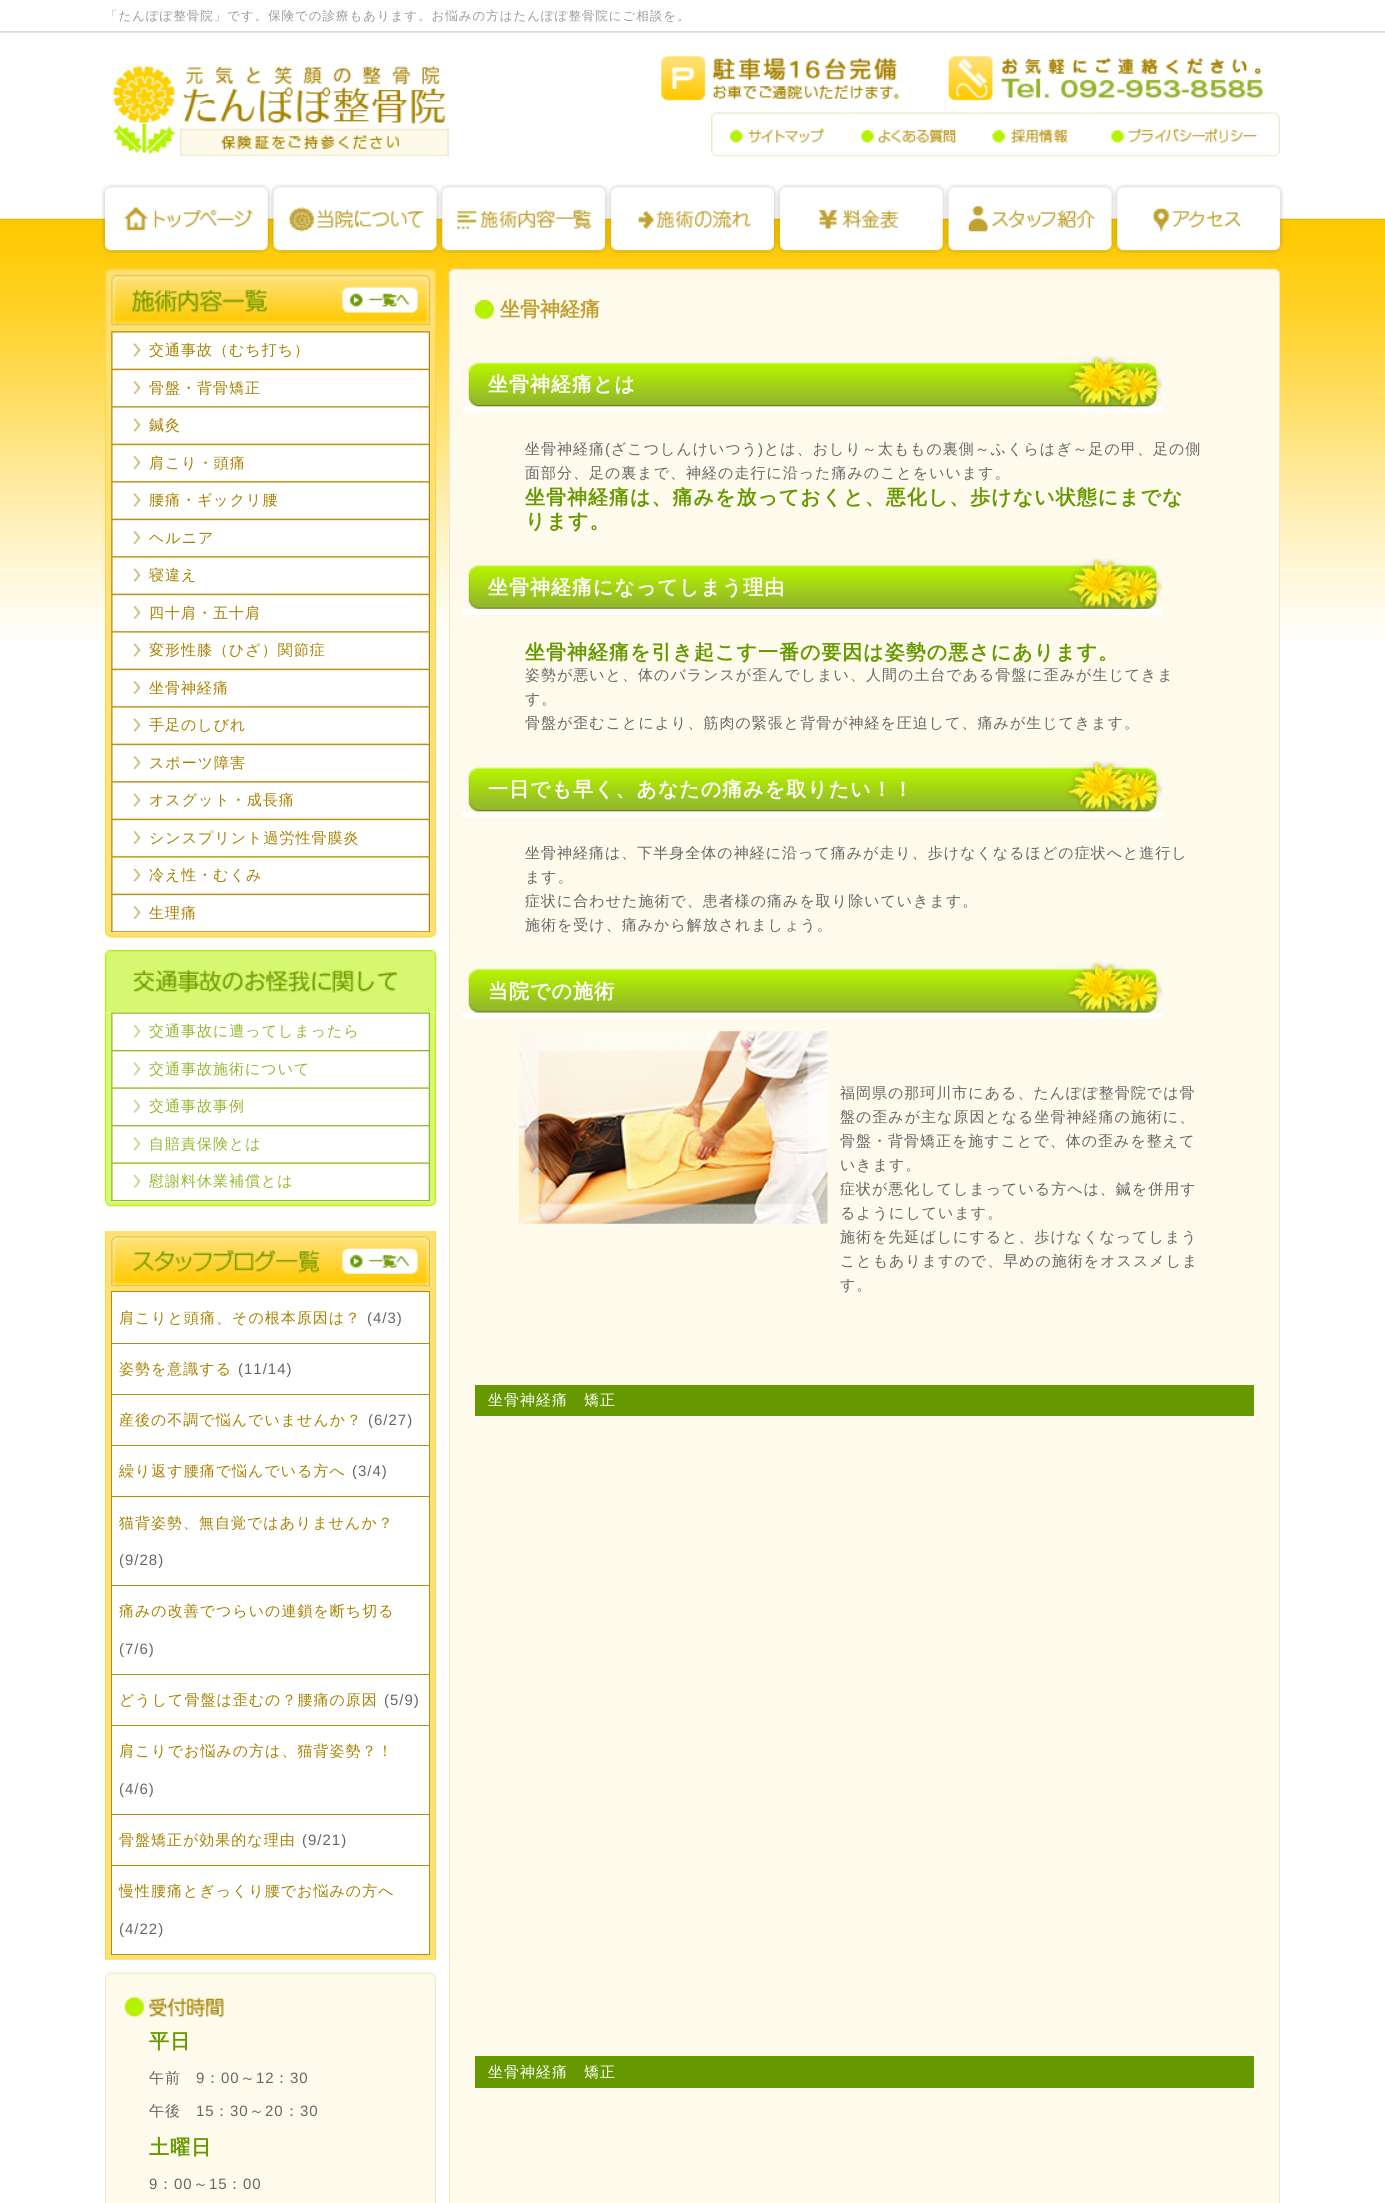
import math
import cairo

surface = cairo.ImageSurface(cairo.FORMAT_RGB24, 1385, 2203)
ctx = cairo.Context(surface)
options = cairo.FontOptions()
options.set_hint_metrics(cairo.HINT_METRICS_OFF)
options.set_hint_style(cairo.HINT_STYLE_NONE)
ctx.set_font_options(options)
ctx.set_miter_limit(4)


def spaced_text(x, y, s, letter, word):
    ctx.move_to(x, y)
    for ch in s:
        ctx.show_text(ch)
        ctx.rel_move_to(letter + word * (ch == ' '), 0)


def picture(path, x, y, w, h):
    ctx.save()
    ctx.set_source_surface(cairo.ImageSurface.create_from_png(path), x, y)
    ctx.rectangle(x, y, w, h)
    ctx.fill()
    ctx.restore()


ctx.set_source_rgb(1, 1, 1)
ctx.paint()
picture("img1.png", 0, 31, 1385, 611)
picture("img2.png", 112, 56, 1168, 101)
ctx.select_font_face("WenQuanYi Zen Hei Medium")
ctx.set_font_size(12.45)
ctx.set_source_rgb(0.6, 0.6, 0.6)
spaced_text(105, 20, "「たんぽぽ整骨院」です。保険での診療もあります。お悩みの方はたんぽぽ整骨院にご相談を。", 1, 0)
picture("img3.png", 711, 112, 125, 41)
picture("img4.png", 855, 112, 112, 31)
picture("img5.png", 986, 112, 94, 31)
picture("img6.png", 1099, 112, 168, 31)
picture("img7.png", 101, 184, 1183, 70)
picture("img8.png", 105, 187, 163, 63)
picture("img9.png", 273, 187, 164, 63)
picture("img10.png", 442, 187, 163, 63)
picture("img11.png", 611, 187, 163, 63)
picture("img12.png", 780, 187, 163, 63)
picture("img13.png", 948, 187, 164, 63)
picture("img14.png", 1117, 187, 163, 63)
picture("img15.png", 105, 268, 332, 64)
ctx.set_source_rgb(1, 0.882, 0.451)
ctx.rectangle(106, 331, 329, 602)
ctx.fill()
ctx.set_source_rgb(1, 0.839, 0.251)
ctx.rectangle(435, 331, 1, 602)
ctx.fill()
ctx.rectangle(105, 331, 1, 602)
ctx.fill()
ctx.set_source_rgb(0.675, 0.541, 0.063)
ctx.rectangle(111, 931, 319, 1)
ctx.fill()
picture("img16.png", 111, 331, 319, 38)
ctx.set_font_size(15)
ctx.set_source_rgb(0.651, 0.51, 0)
spaced_text(149, 355, "交通事故（むち打ち）", 1, 0)
picture("img17.png", 111, 368, 319, 39)
spaced_text(149, 393, "骨盤・背骨矯正", 1, 0)
picture("img18.png", 111, 406, 319, 38)
spaced_text(149, 430, "鍼灸", 1, 0)
picture("img17.png", 111, 443, 319, 39)
spaced_text(149, 468, "肩こり・頭痛", 1, 0)
picture("img18.png", 111, 481, 319, 38)
spaced_text(149, 505, "腰痛・ギックリ腰", 1, 0)
picture("img17.png", 111, 518, 319, 39)
spaced_text(149, 543, "ヘルニア", 1, 0)
picture("img19.png", 111, 556, 319, 38)
spaced_text(149, 580, "寝違え", 1, 0)
picture("img17.png", 111, 593, 319, 39)
spaced_text(149, 618, "四十肩・五十肩", 1, 0)
picture("img18.png", 111, 631, 319, 38)
spaced_text(149, 655, "変形性膝（ひざ）関節症", 1, 0)
picture("img17.png", 111, 668, 319, 39)
spaced_text(149, 693, "坐骨神経痛", 1, 0)
picture("img18.png", 111, 706, 319, 38)
spaced_text(149, 730, "手足のしびれ", 1, 0)
picture("img17.png", 111, 743, 319, 39)
spaced_text(149, 768, "スポーツ障害", 1, 0)
picture("img20.png", 111, 781, 319, 38)
spaced_text(149, 805, "オスグット・成長痛", 1, 0)
picture("img17.png", 111, 818, 319, 39)
spaced_text(149, 843, "シンスプリント過労性骨膜炎", 1, 0)
picture("img18.png", 111, 856, 319, 38)
spaced_text(149, 880, "冷え性・むくみ", 1, 0)
picture("img21.png", 111, 893, 319, 39)
spaced_text(149, 918, "生理痛", 1, 0)
picture("img22.png", 105, 932, 332, 6)
picture("img23.png", 105, 950, 332, 63)
ctx.set_source_rgb(0.839, 0.973, 0.439)
ctx.rectangle(106, 1013, 329, 188)
ctx.fill()
ctx.set_source_rgb(0.706, 0.949, 0)
ctx.rectangle(435, 1013, 1, 188)
ctx.fill()
ctx.rectangle(105, 1013, 1, 188)
ctx.fill()
ctx.set_source_rgb(0.576, 0.71, 0.176)
ctx.rectangle(111, 1200, 319, 1)
ctx.fill()
picture("img24.png", 111, 1012, 319, 38)
ctx.set_source_rgb(0.588, 0.722, 0.188)
spaced_text(149, 1036, "交通事故に遭ってしまったら", 1, 0)
picture("img25.png", 111, 1050, 319, 38)
spaced_text(149, 1074, "交通事故施術について", 1, 0)
picture("img26.png", 111, 1087, 319, 38)
spaced_text(149, 1111, "交通事故事例", 1, 0)
picture("img25.png", 111, 1125, 319, 38)
spaced_text(149, 1149, "自賠責保険とは", 1, 0)
picture("img27.png", 111, 1162, 319, 38)
spaced_text(149, 1186, "慰謝料休業補償とは", 1, 0)
picture("img28.png", 105, 1201, 332, 6)
ctx.set_source_rgb(1, 0.882, 0.451)
ctx.rectangle(106, 1231, 329, 729)
ctx.fill()
ctx.set_source_rgb(1, 0.839, 0.251)
ctx.rectangle(435, 1231, 1, 729)
ctx.fill()
ctx.rectangle(105, 1231, 1, 729)
ctx.fill()
picture("img29.png", 111, 1236, 319, 51)
ctx.set_source_rgb(1, 1, 1)
ctx.rectangle(111.5, 1291.5, 318, 52)
ctx.fill_preserve()
ctx.set_source_rgb(0.686, 0.553, 0.078)
ctx.set_line_width(1)
ctx.stroke()
ctx.set_source_rgb(0.651, 0.51, 0)
spaced_text(119, 1323, "肩こりと頭痛、その根本原因は？", 1, 0)
ctx.select_font_face("Liberation Sans")
ctx.set_source_rgb(0.4, 0.4, 0.4)
spaced_text(367, 1323, "(4/3)", 1, 0)
ctx.set_source_rgb(1, 1, 1)
ctx.rectangle(111.5, 1343.5, 318, 51)
ctx.fill_preserve()
ctx.set_source_rgb(0.686, 0.553, 0.078)
ctx.stroke()
ctx.select_font_face("WenQuanYi Zen Hei Medium")
ctx.set_source_rgb(0.651, 0.51, 0)
spaced_text(119, 1374, "姿勢を意識する", 1, 0)
ctx.select_font_face("Liberation Sans")
ctx.set_source_rgb(0.4, 0.4, 0.4)
spaced_text(238, 1374, "(11/14)", 1, 0)
ctx.set_source_rgb(1, 1, 1)
ctx.rectangle(111.5, 1394.5, 318, 51)
ctx.fill_preserve()
ctx.set_source_rgb(0.686, 0.553, 0.078)
ctx.stroke()
ctx.select_font_face("WenQuanYi Zen Hei Medium")
ctx.set_source_rgb(0.651, 0.51, 0)
spaced_text(119, 1425, "産後の不調で悩んでいませんか？", 1, 0)
ctx.select_font_face("Liberation Sans")
ctx.set_source_rgb(0.4, 0.4, 0.4)
spaced_text(368, 1425, "(6/27)", 1, 0)
ctx.set_source_rgb(1, 1, 1)
ctx.rectangle(112, 1446, 317, 50)
ctx.fill()
ctx.rectangle(111.5, 1445.5, 318, 52)
ctx.set_source_rgb(0.686, 0.553, 0.078)
ctx.stroke()
ctx.select_font_face("WenQuanYi Zen Hei Medium")
ctx.set_source_rgb(0.651, 0.51, 0)
spaced_text(119, 1476, "繰り返す腰痛で悩んでいる方へ", 1, 0)
ctx.select_font_face("Liberation Sans")
ctx.set_source_rgb(0.4, 0.4, 0.4)
spaced_text(352, 1476, "(3/4)", 1, 0)
ctx.set_source_rgb(1, 1, 1)
ctx.rectangle(111.5, 1496.5, 318, 89)
ctx.fill_preserve()
ctx.set_source_rgb(0.686, 0.553, 0.078)
ctx.stroke()
ctx.select_font_face("WenQuanYi Zen Hei Medium")
ctx.set_source_rgb(0.651, 0.51, 0)
spaced_text(119, 1528, "猫背姿勢、無自覚ではありませんか？", 1, 0)
ctx.select_font_face("Liberation Sans")
ctx.set_source_rgb(0.4, 0.4, 0.4)
spaced_text(119, 1565, "(9/28)", 1, 0)
ctx.set_source_rgb(1, 1, 1)
ctx.rectangle(111.5, 1585.5, 318, 89)
ctx.fill_preserve()
ctx.set_source_rgb(0.686, 0.553, 0.078)
ctx.stroke()
ctx.select_font_face("WenQuanYi Zen Hei Medium")
ctx.set_source_rgb(0.651, 0.51, 0)
spaced_text(119, 1616, "痛みの改善でつらいの連鎖を断ち切る", 1, 0)
ctx.select_font_face("Liberation Sans")
ctx.set_source_rgb(0.4, 0.4, 0.4)
spaced_text(119, 1654, "(7/6)", 1, 0)
ctx.set_source_rgb(1, 1, 1)
ctx.rectangle(111.5, 1674.5, 318, 51)
ctx.fill_preserve()
ctx.set_source_rgb(0.686, 0.553, 0.078)
ctx.stroke()
ctx.select_font_face("WenQuanYi Zen Hei Medium")
ctx.set_source_rgb(0.651, 0.51, 0)
spaced_text(119, 1705, "どうして骨盤は歪むの？腰痛の原因", 1, 0)
ctx.select_font_face("Liberation Sans")
ctx.set_source_rgb(0.4, 0.4, 0.4)
spaced_text(384, 1705, "(5/9)", 1, 0)
ctx.set_source_rgb(1, 1, 1)
ctx.rectangle(111.5, 1725.5, 318, 89)
ctx.fill_preserve()
ctx.set_source_rgb(0.686, 0.553, 0.078)
ctx.stroke()
ctx.select_font_face("WenQuanYi Zen Hei Medium")
ctx.set_source_rgb(0.651, 0.51, 0)
spaced_text(119, 1756, "肩こりでお悩みの方は、猫背姿勢？！", 1, 0)
ctx.select_font_face("Liberation Sans")
ctx.set_source_rgb(0.4, 0.4, 0.4)
spaced_text(119, 1794, "(4/6)", 1, 0)
ctx.set_source_rgb(1, 1, 1)
ctx.rectangle(111.5, 1814.5, 318, 51)
ctx.fill_preserve()
ctx.set_source_rgb(0.686, 0.553, 0.078)
ctx.stroke()
ctx.select_font_face("WenQuanYi Zen Hei Medium")
ctx.set_source_rgb(0.651, 0.51, 0)
spaced_text(119, 1845, "骨盤矯正が効果的な理由", 1, 0)
ctx.select_font_face("Liberation Sans")
ctx.set_source_rgb(0.4, 0.4, 0.4)
spaced_text(302, 1845, "(9/21)", 1, 0)
ctx.set_source_rgb(1, 1, 1)
ctx.rectangle(111.5, 1865.5, 318, 89)
ctx.fill_preserve()
ctx.set_source_rgb(0.686, 0.553, 0.078)
ctx.stroke()
ctx.select_font_face("WenQuanYi Zen Hei Medium")
ctx.set_source_rgb(0.651, 0.51, 0)
spaced_text(119, 1896, "慢性腰痛とぎっくり腰でお悩みの方へ", 1, 0)
ctx.select_font_face("Liberation Sans")
ctx.set_source_rgb(0.4, 0.4, 0.4)
spaced_text(119, 1934, "(4/22)", 1, 0)
picture("img30.png", 105, 1972, 332, 7)
ctx.set_source_rgb(0.996, 0.98, 0.922)
ctx.rectangle(106, 1979, 329, 224)
ctx.fill()
ctx.set_source_rgb(0.937, 0.906, 0.796)
ctx.rectangle(435, 1979, 1, 224)
ctx.fill()
ctx.rectangle(105, 1979, 1, 224)
ctx.fill()
picture("img31.png", 124, 1997, 100, 21)
ctx.select_font_face("WenQuanYi Zen Hei", cairo.FONT_SLANT_NORMAL, cairo.FONT_WEIGHT_BOLD)
ctx.set_font_size(20)
ctx.set_source_rgb(0.4, 0.6, 0)
spaced_text(149, 2048, "平日", 1, 0)
ctx.select_font_face("WenQuanYi Zen Hei Medium")
ctx.set_font_size(15)
ctx.set_source_rgb(0.4, 0.4, 0.4)
spaced_text(149, 2083, "午前", 1, 0)
ctx.select_font_face("Liberation Sans")
spaced_text(196, 2083, "9", 1, 0)
ctx.select_font_face("WenQuanYi Zen Hei Medium")
spaced_text(205, 2083, "：", 1, 0)
ctx.select_font_face("Liberation Sans")
spaced_text(221, 2083, "00", 1, 0)
ctx.select_font_face("WenQuanYi Zen Hei Medium")
spaced_text(240, 2083, "～", 1, 0)
ctx.select_font_face("Liberation Sans")
spaced_text(256, 2083, "12", 1, 0)
ctx.select_font_face("WenQuanYi Zen Hei Medium")
spaced_text(274, 2083, "：", 1, 0)
ctx.select_font_face("Liberation Sans")
spaced_text(290, 2083, "30", 1, 0)
ctx.select_font_face("WenQuanYi Zen Hei Medium")
spaced_text(149, 2116, "午後", 1, 0)
ctx.select_font_face("Liberation Sans")
spaced_text(196, 2116, "15", 1, 0)
ctx.select_font_face("WenQuanYi Zen Hei Medium")
spaced_text(214, 2116, "：", 1, 0)
ctx.select_font_face("Liberation Sans")
spaced_text(230, 2116, "30", 1, 0)
ctx.select_font_face("WenQuanYi Zen Hei Medium")
spaced_text(249, 2116, "～", 1, 0)
ctx.select_font_face("Liberation Sans")
spaced_text(265, 2116, "20", 1, 0)
ctx.select_font_face("WenQuanYi Zen Hei Medium")
spaced_text(284, 2116, "：", 1, 0)
ctx.select_font_face("Liberation Sans")
spaced_text(300, 2116, "30", 1, 0)
ctx.select_font_face("WenQuanYi Zen Hei", cairo.FONT_SLANT_NORMAL, cairo.FONT_WEIGHT_BOLD)
ctx.set_font_size(20)
ctx.set_source_rgb(0.4, 0.6, 0)
spaced_text(149, 2154, "土曜日", 1, 0)
ctx.select_font_face("Liberation Sans")
ctx.set_font_size(15)
ctx.set_source_rgb(0.4, 0.4, 0.4)
spaced_text(149, 2189, "9", 1, 0)
ctx.select_font_face("WenQuanYi Zen Hei Medium")
spaced_text(158, 2189, "：", 1, 0)
ctx.select_font_face("Liberation Sans")
spaced_text(174, 2189, "00", 1, 0)
ctx.select_font_face("WenQuanYi Zen Hei Medium")
spaced_text(193, 2189, "～", 1, 0)
ctx.select_font_face("Liberation Sans")
spaced_text(209, 2189, "15", 1, 0)
ctx.select_font_face("WenQuanYi Zen Hei Medium")
spaced_text(227, 2189, "：", 1, 0)
ctx.select_font_face("Liberation Sans")
spaced_text(243, 2189, "00", 1, 0)
picture("img32.png", 448, 268, 832, 14)
ctx.set_source_rgb(0.996, 0.98, 0.922)
ctx.rectangle(450, 281, 829, 1922)
ctx.fill()
ctx.set_source_rgb(0.937, 0.906, 0.796)
ctx.rectangle(1279, 281, 1, 1922)
ctx.fill()
ctx.rectangle(449, 281, 1, 1922)
ctx.fill()
picture("img33.png", 475, 300, 19, 19)
ctx.select_font_face("WenQuanYi Zen Hei", cairo.FONT_SLANT_NORMAL, cairo.FONT_WEIGHT_BOLD)
ctx.set_font_size(20)
ctx.set_source_rgb(0.749, 0.631, 0.188)
ctx.move_to(500, 316)
ctx.show_text("坐骨神経痛")
picture("img34.png", 462, 356, 701, 57)
ctx.set_source_rgb(1, 1, 1)
spaced_text(488, 391, "坐骨神経痛とは", 1, 0)
ctx.select_font_face("WenQuanYi Zen Hei Medium")
ctx.set_font_size(15)
ctx.set_source_rgb(0.4, 0.4, 0.4)
spaced_text(525, 454, "坐骨神経痛", 1, 0)
ctx.select_font_face("Liberation Sans")
spaced_text(605, 454, "(", 1, 0)
ctx.select_font_face("WenQuanYi Zen Hei Medium")
spaced_text(611, 454, "ざこつしんけいつう", 1, 0)
ctx.select_font_face("Liberation Sans")
spaced_text(758, 454, ")", 1, 0)
ctx.select_font_face("WenQuanYi Zen Hei Medium")
spaced_text(764, 454, "とは、おしり～太ももの裏側～ふくらはぎ～足の甲、足の側", 1, 0)
spaced_text(525, 478, "面部分、足の裏まで、神経の走行に沿った痛みのことをいいます。", 1, 0)
ctx.select_font_face("WenQuanYi Zen Hei", cairo.FONT_SLANT_NORMAL, cairo.FONT_WEIGHT_BOLD)
ctx.set_font_size(20)
ctx.set_source_rgb(0.4, 0.6, 0)
spaced_text(525, 504, "坐骨神経痛は、痛みを放っておくと、悪化し、歩けない状態にまでな", 1, 0)
spaced_text(525, 528, "ります。", 1, 0)
picture("img35.png", 462, 558, 701, 57)
ctx.set_source_rgb(1, 1, 1)
spaced_text(488, 594, "坐骨神経痛になってしまう理由", 1, 0)
ctx.set_source_rgb(0.4, 0.6, 0)
spaced_text(525, 659, "坐骨神経痛を引き起こす一番の要因は姿勢の悪さにあります。", 1, 0)
ctx.select_font_face("WenQuanYi Zen Hei Medium")
ctx.set_font_size(15)
ctx.set_source_rgb(0.4, 0.4, 0.4)
spaced_text(525, 680, "姿勢が悪いと、体のバランスが歪んでしまい、人間の土台である骨盤に歪みが生じてきま", 1, 0)
spaced_text(525, 704, "す。", 1, 0)
spaced_text(525, 728, "骨盤が歪むことにより、筋肉の緊張と背骨が神経を圧迫して、痛みが生じてきます。", 1, 0)
picture("img34.png", 462, 761, 701, 57)
ctx.select_font_face("WenQuanYi Zen Hei", cairo.FONT_SLANT_NORMAL, cairo.FONT_WEIGHT_BOLD)
ctx.set_font_size(20)
ctx.set_source_rgb(1, 1, 1)
spaced_text(488, 796, "一日でも早く、あなたの痛みを取りたい！！", 1, 0)
ctx.select_font_face("WenQuanYi Zen Hei Medium")
ctx.set_font_size(15)
ctx.set_source_rgb(0.4, 0.4, 0.4)
spaced_text(525, 858, "坐骨神経痛は、下半身全体の神経に沿って痛みが走り、歩けなくなるほどの症状へと進行し", 1, 0)
spaced_text(525, 882, "ます。", 1, 0)
spaced_text(525, 906, "症状に合わせた施術で、患者様の痛みを取り除いていきます。", 1, 0)
spaced_text(525, 930, "施術を受け、痛みから解放されましょう。", 1, 0)
picture("img36.png", 462, 962, 701, 57)
ctx.select_font_face("WenQuanYi Zen Hei", cairo.FONT_SLANT_NORMAL, cairo.FONT_WEIGHT_BOLD)
ctx.set_font_size(20)
ctx.set_source_rgb(1, 1, 1)
spaced_text(488, 998, "当院での施術", 1, 0)
picture("img37.png", 518, 1031, 310, 193)
ctx.select_font_face("WenQuanYi Zen Hei Medium")
ctx.set_font_size(15)
ctx.set_source_rgb(0.4, 0.4, 0.4)
spaced_text(840, 1098, "福岡県の那珂川市にある、たんぽぽ整骨院では骨", 1, 0)
spaced_text(840, 1122, "盤の歪みが主な原因となる坐骨神経痛の施術に、", 1, 0)
spaced_text(840, 1146, "骨盤・背骨矯正を施すことで、体の歪みを整えて", 1, 0)
spaced_text(840, 1170, "いきます。", 1, 0)
spaced_text(840, 1194, "症状が悪化してしまっている方へは、鍼を併用す", 1, 0)
spaced_text(840, 1218, "るようにしています。", 1, 0)
spaced_text(840, 1242, "施術を先延ばしにすると、歩けなくなってしまう", 1, 0)
spaced_text(840, 1266, "こともありますので、早めの施術をオススメしま", 1, 0)
spaced_text(840, 1290, "す。", 1, 0)
ctx.set_source_rgb(0.4, 0.6, 0)
ctx.rectangle(475, 1385, 779, 31)
ctx.fill()
ctx.set_source_rgb(1, 1, 1)
spaced_text(488, 1405, "坐骨神経痛　矯正", 1, 0)
ctx.set_source_rgb(0.4, 0.6, 0)
ctx.rectangle(475, 2056, 779, 32)
ctx.fill()
ctx.set_source_rgb(1, 1, 1)
spaced_text(488, 2077, "坐骨神経痛　矯正", 1, 0)
surface.write_to_png("page.png")
